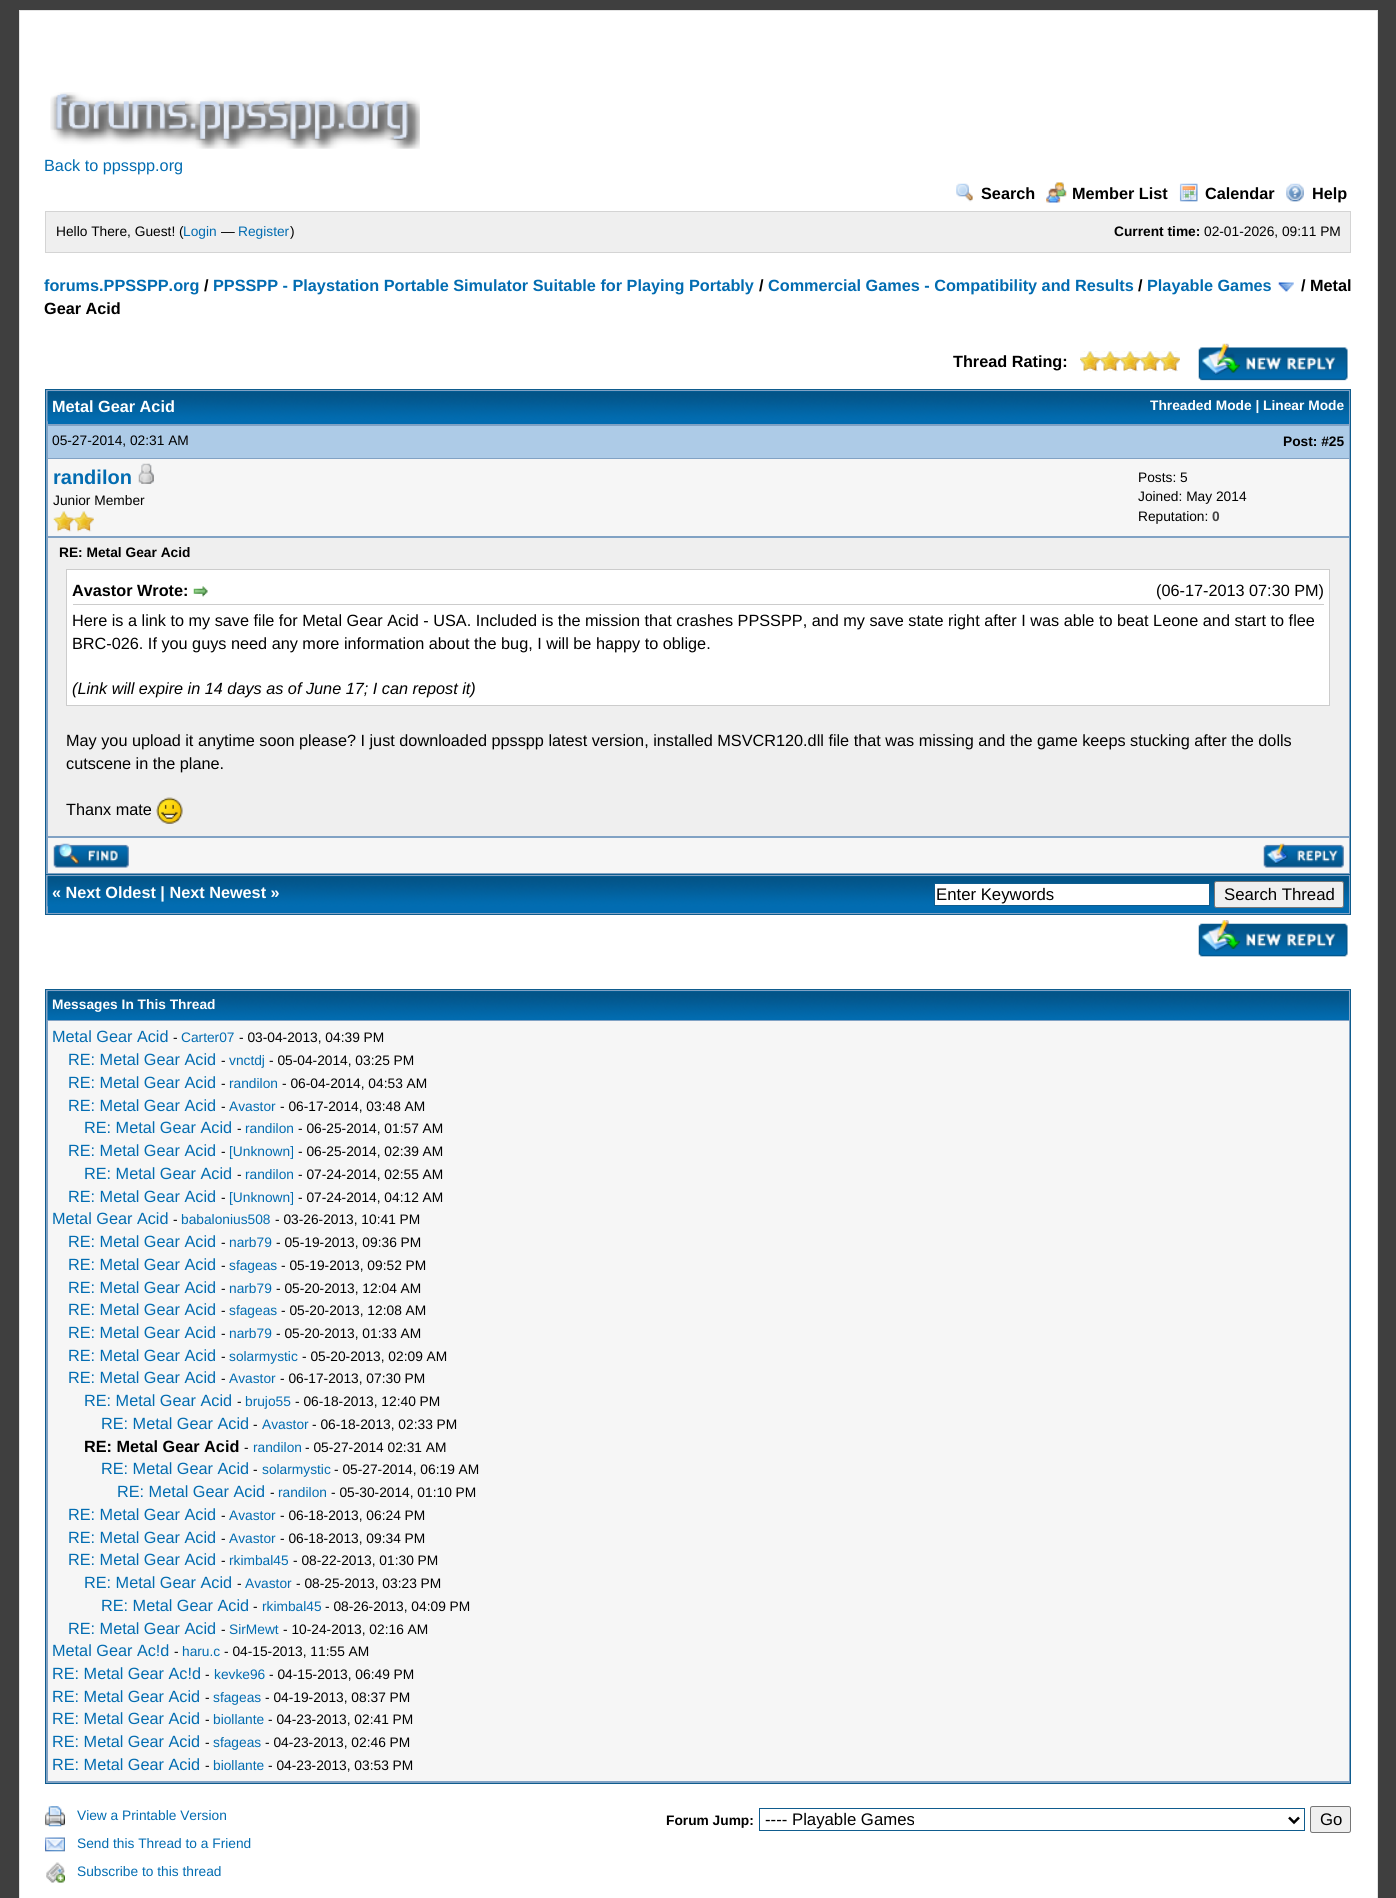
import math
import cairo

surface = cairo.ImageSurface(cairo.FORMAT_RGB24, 1396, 1898)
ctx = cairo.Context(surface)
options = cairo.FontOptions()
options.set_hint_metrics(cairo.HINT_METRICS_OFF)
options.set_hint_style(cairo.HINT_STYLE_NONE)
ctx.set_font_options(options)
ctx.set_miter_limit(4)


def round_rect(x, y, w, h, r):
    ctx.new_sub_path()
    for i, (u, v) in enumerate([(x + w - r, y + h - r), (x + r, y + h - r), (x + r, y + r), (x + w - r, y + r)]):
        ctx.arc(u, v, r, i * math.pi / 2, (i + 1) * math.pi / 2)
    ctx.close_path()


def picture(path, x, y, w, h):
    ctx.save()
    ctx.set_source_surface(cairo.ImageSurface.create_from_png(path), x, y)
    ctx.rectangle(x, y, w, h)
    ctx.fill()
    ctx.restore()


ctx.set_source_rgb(0.247, 0.247, 0.247)
ctx.paint()
ctx.set_source_rgb(1, 1, 1)
ctx.rectangle(19.5, 10.5, 1358, 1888)
ctx.fill_preserve()
ctx.set_source_rgb(0.894, 0.894, 0.894)
ctx.set_line_width(1)
ctx.stroke()
picture("img1.png", 50, 92, 370, 57)
ctx.select_font_face("Liberation Sans")
ctx.set_font_size(16.25)
ctx.set_source_rgb(0.008, 0.424, 0.694)
ctx.move_to(44, 171)
ctx.show_text("Back to ppsspp.org")
picture("img2.png", 956, 183, 17, 19)
ctx.select_font_face("Liberation Sans", cairo.FONT_SLANT_NORMAL, cairo.FONT_WEIGHT_BOLD)
ctx.set_source_rgb(0, 0, 0)
ctx.move_to(981, 199)
ctx.show_text("Search")
picture("img3.png", 1046, 182, 21, 21)
ctx.move_to(1072, 199)
ctx.show_text("Member List")
picture("img4.png", 1179, 183, 19, 19)
ctx.move_to(1205, 199)
ctx.show_text("Calendar")
picture("img5.png", 1286, 183, 18, 19)
ctx.move_to(1312, 199)
ctx.show_text("Help")
ctx.set_source_rgb(0.937, 0.937, 0.937)
ctx.rectangle(45.5, 211.5, 1305, 41)
ctx.fill_preserve()
ctx.set_source_rgb(0.831, 0.831, 0.831)
ctx.stroke()
ctx.select_font_face("Liberation Sans")
ctx.set_font_size(13.75)
ctx.set_source_rgb(0, 0, 0)
ctx.move_to(56, 236)
ctx.show_text("Hello There, Guest! (")
ctx.set_source_rgb(0.008, 0.424, 0.694)
ctx.move_to(183, 236)
ctx.show_text("Login")
ctx.set_source_rgb(0, 0, 0)
ctx.move_to(221, 236)
ctx.show_text("—")
ctx.set_source_rgb(0.008, 0.424, 0.694)
ctx.move_to(238, 236)
ctx.show_text("Register")
ctx.set_source_rgb(0, 0, 0)
ctx.move_to(290, 236)
ctx.show_text(")")
ctx.select_font_face("Liberation Sans", cairo.FONT_SLANT_NORMAL, cairo.FONT_WEIGHT_BOLD)
ctx.move_to(1114, 236)
ctx.show_text("Current time:")
ctx.select_font_face("Liberation Sans")
ctx.move_to(1204, 236)
ctx.show_text("02-01-2026, 09:11 PM")
ctx.select_font_face("Liberation Sans", cairo.FONT_SLANT_NORMAL, cairo.FONT_WEIGHT_BOLD)
ctx.set_font_size(16.25)
ctx.set_source_rgb(0.008, 0.424, 0.694)
ctx.move_to(44, 291)
ctx.show_text("forums.PPSSPP.org")
ctx.set_source_rgb(0, 0, 0)
ctx.move_to(204, 291)
ctx.show_text("/")
ctx.set_source_rgb(0.008, 0.424, 0.694)
ctx.move_to(213, 291)
ctx.show_text("PPSSPP - Playstation Portable Simulator Suitable for Playing Portably")
ctx.set_source_rgb(0, 0, 0)
ctx.move_to(759, 291)
ctx.show_text("/")
ctx.set_source_rgb(0.008, 0.424, 0.694)
ctx.move_to(768, 291)
ctx.show_text("Commercial Games - Compatibility and Results")
ctx.set_source_rgb(0, 0, 0)
ctx.move_to(1138, 291)
ctx.show_text("/")
ctx.set_source_rgb(0.008, 0.424, 0.694)
ctx.move_to(1147, 291)
ctx.show_text("Playable Games")
picture("img6.png", 1278, 282, 16, 10)
ctx.set_source_rgb(0, 0, 0)
ctx.move_to(1301, 291)
ctx.show_text("/ Metal")
ctx.move_to(44, 314)
ctx.show_text("Gear Acid")
ctx.move_to(953, 367)
ctx.show_text("Thread Rating:")
picture("img7.png", 1080, 351, 100, 21)
picture("img8.png", 1080, 351, 100, 20)
picture("img9.png", 1198, 343, 150, 38)
ctx.set_source_rgb(0.506, 0.635, 0.769)
ctx.rectangle(46, 390, 1304, 484)
ctx.fill()
ctx.set_source_rgb(0.059, 0.361, 0.557)
ctx.rectangle(45, 389, 1306, 1)
ctx.fill()
ctx.rectangle(1350, 389, 1, 526)
ctx.fill()
ctx.rectangle(45, 389, 1, 36)
ctx.fill()
ctx.set_source_rgb(0.008, 0.424, 0.694)
ctx.rectangle(48, 391, 1301, 33)
ctx.fill()
picture("img10.png", 47, 391, 1302, 31)
ctx.set_source_rgb(1, 1, 1)
ctx.move_to(52, 412)
ctx.show_text("Metal Gear Acid")
ctx.set_font_size(13.75)
ctx.move_to(1150, 410)
ctx.show_text("Threaded Mode | Linear Mode")
ctx.set_source_rgb(0.059, 0.361, 0.557)
ctx.rectangle(45, 874, 1306, 1)
ctx.fill()
ctx.rectangle(45, 425, 1, 450)
ctx.fill()
ctx.set_source_rgb(0.678, 0.796, 0.906)
ctx.rectangle(48, 426, 1301, 32)
ctx.fill()
ctx.select_font_face("Liberation Sans")
ctx.set_source_rgb(0, 0, 0)
ctx.move_to(52, 445)
ctx.show_text("05-27-2014, 02:31 AM")
ctx.select_font_face("Liberation Sans", cairo.FONT_SLANT_NORMAL, cairo.FONT_WEIGHT_BOLD)
ctx.move_to(1283, 446)
ctx.show_text("Post: #25")
ctx.set_source_rgb(0.961, 0.961, 0.961)
ctx.rectangle(48, 459, 1301, 77)
ctx.fill()
ctx.set_font_size(20)
ctx.set_source_rgb(0.008, 0.424, 0.694)
ctx.move_to(53, 484)
ctx.show_text("randilon")
picture("img11.png", 138, 463, 16, 21)
ctx.select_font_face("Liberation Sans")
ctx.set_font_size(13.75)
ctx.set_source_rgb(0, 0, 0)
ctx.move_to(53, 505)
ctx.show_text("Junior Member")
picture("img12.png", 53, 511, 21, 21)
picture("img13.png", 73, 511, 21, 21)
ctx.move_to(1138, 482)
ctx.show_text("Posts: 5")
ctx.move_to(1138, 501)
ctx.show_text("Joined: May 2014")
ctx.move_to(1138, 521)
ctx.show_text("Reputation:")
ctx.select_font_face("Liberation Sans", cairo.FONT_SLANT_NORMAL, cairo.FONT_WEIGHT_BOLD)
ctx.set_source_rgb(0.267, 0.267, 0.267)
ctx.move_to(1212, 521)
ctx.show_text("0")
ctx.set_source_rgb(0.937, 0.937, 0.937)
ctx.rectangle(48, 538, 1301, 298)
ctx.fill()
ctx.set_source_rgb(0, 0, 0)
ctx.move_to(59, 557)
ctx.show_text("RE: Metal Gear Acid")
ctx.set_source_rgb(1, 1, 1)
ctx.rectangle(66.5, 569.5, 1263, 136)
ctx.fill_preserve()
ctx.set_source_rgb(0.8, 0.8, 0.8)
ctx.stroke()
ctx.rectangle(73, 604, 1251, 1)
ctx.fill()
ctx.set_font_size(16.25)
ctx.set_source_rgb(0, 0, 0)
ctx.move_to(72, 596)
ctx.show_text("Avastor Wrote:")
picture("img14.png", 193, 586, 15, 11)
ctx.select_font_face("Liberation Sans")
ctx.move_to(1156, 596)
ctx.show_text("(06-17-2013 07:30 PM)")
ctx.move_to(72, 626)
ctx.show_text("Here is a link to my save file for Metal Gear Acid - USA. Included is the mission that crashes PPSSPP, and my save state right after I was able to beat Leone and start to flee")
ctx.move_to(72, 649)
ctx.show_text("BRC-026. If you guys need any more information about the bug, I will be happy to oblige.")
ctx.select_font_face("Liberation Sans", cairo.FONT_SLANT_ITALIC)
ctx.move_to(72, 694)
ctx.show_text("(Link will expire in 14 days as of June 17; I can repost it)")
ctx.select_font_face("Liberation Sans")
ctx.move_to(66, 746)
ctx.show_text("May you upload it anytime soon please? I just downloaded ppsspp latest version, installed MSVCR120.dll file that was missing and the game keeps stucking after the dolls")
ctx.move_to(66, 769)
ctx.show_text("cutscene in the plane.")
ctx.move_to(66, 815)
ctx.show_text("Thanx mate")
picture("img15.png", 156, 797, 27, 27)
ctx.set_source_rgb(0.961, 0.961, 0.961)
ctx.rectangle(48, 838, 1301, 35)
ctx.fill()
picture("img16.png", 53, 843, 76, 25)
picture("img17.png", 1263, 843, 81, 25)
ctx.set_source_rgb(0.506, 0.635, 0.769)
ctx.rectangle(46, 875, 1304, 39)
ctx.fill()
ctx.set_source_rgb(0.059, 0.361, 0.557)
ctx.rectangle(45, 914, 1306, 1)
ctx.fill()
ctx.rectangle(45, 875, 1, 40)
ctx.fill()
ctx.set_source_rgb(0.008, 0.424, 0.694)
ctx.rectangle(48, 876, 1301, 37)
ctx.fill()
picture("img18.png", 47, 876, 1302, 31)
ctx.select_font_face("Liberation Sans", cairo.FONT_SLANT_NORMAL, cairo.FONT_WEIGHT_BOLD)
ctx.set_source_rgb(1, 1, 1)
ctx.move_to(52, 898)
ctx.show_text("« Next Oldest | Next Newest »")
ctx.rectangle(934.5, 883.5, 275, 22)
ctx.fill_preserve()
ctx.set_source_rgb(0.059, 0.361, 0.557)
ctx.stroke()
ctx.select_font_face("Liberation Sans")
ctx.set_font_size(16.75)
ctx.set_source_rgb(0, 0, 0)
ctx.move_to(936, 900)
ctx.show_text("Enter Keywords")
ctx.set_source_rgb(0.937, 0.937, 0.937)
round_rect(1214.5, 881.5, 129, 26, 2)
ctx.fill_preserve()
ctx.set_source_rgb(0.463, 0.463, 0.463)
ctx.stroke()
ctx.set_source_rgb(0, 0, 0)
ctx.move_to(1224, 900)
ctx.show_text("Search Thread")
picture("img19.png", 1198, 920, 150, 37)
ctx.set_source_rgb(0.506, 0.635, 0.769)
ctx.rectangle(45.5, 989.5, 1305, 794)
ctx.fill_preserve()
ctx.set_source_rgb(0.059, 0.361, 0.557)
ctx.stroke()
ctx.set_source_rgb(0.008, 0.424, 0.694)
ctx.rectangle(48, 991, 1301, 29)
ctx.fill()
picture("img20.png", 47, 991, 1302, 29)
ctx.select_font_face("Liberation Sans", cairo.FONT_SLANT_NORMAL, cairo.FONT_WEIGHT_BOLD)
ctx.set_font_size(13.75)
ctx.set_source_rgb(1, 1, 1)
ctx.move_to(52, 1009)
ctx.show_text("Messages In This Thread")
ctx.set_source_rgb(0.961, 0.961, 0.961)
ctx.rectangle(48, 1021, 1301, 760)
ctx.fill()
ctx.select_font_face("Liberation Sans")
ctx.set_font_size(16.25)
ctx.set_source_rgb(0.008, 0.424, 0.694)
ctx.move_to(52, 1042)
ctx.show_text("Metal Gear Acid")
ctx.set_font_size(13.75)
ctx.set_source_rgb(0, 0, 0)
ctx.move_to(173, 1042)
ctx.show_text("-")
ctx.set_source_rgb(0.008, 0.424, 0.694)
ctx.move_to(181, 1042)
ctx.show_text("Carter07")
ctx.set_source_rgb(0, 0, 0)
ctx.move_to(239, 1042)
ctx.show_text("- 03-04-2013, 04:39 PM")
ctx.set_font_size(16.25)
ctx.set_source_rgb(0.008, 0.424, 0.694)
ctx.move_to(68, 1065)
ctx.show_text("RE: Metal Gear Acid")
ctx.set_font_size(13.75)
ctx.set_source_rgb(0, 0, 0)
ctx.move_to(221, 1065)
ctx.show_text("-")
ctx.set_source_rgb(0.008, 0.424, 0.694)
ctx.move_to(229, 1065)
ctx.show_text("vnctdj")
ctx.set_source_rgb(0, 0, 0)
ctx.move_to(269, 1065)
ctx.show_text("- 05-04-2014, 03:25 PM")
ctx.set_font_size(16.25)
ctx.set_source_rgb(0.008, 0.424, 0.694)
ctx.move_to(68, 1088)
ctx.show_text("RE: Metal Gear Acid")
ctx.set_font_size(13.75)
ctx.set_source_rgb(0, 0, 0)
ctx.move_to(221, 1088)
ctx.show_text("-")
ctx.set_source_rgb(0.008, 0.424, 0.694)
ctx.move_to(229, 1088)
ctx.show_text("randilon")
ctx.set_source_rgb(0, 0, 0)
ctx.move_to(282, 1088)
ctx.show_text("- 06-04-2014, 04:53 AM")
ctx.set_font_size(16.25)
ctx.set_source_rgb(0.008, 0.424, 0.694)
ctx.move_to(68, 1111)
ctx.show_text("RE: Metal Gear Acid")
ctx.set_font_size(13.75)
ctx.set_source_rgb(0, 0, 0)
ctx.move_to(221, 1111)
ctx.show_text("-")
ctx.set_source_rgb(0.008, 0.424, 0.694)
ctx.move_to(229, 1111)
ctx.show_text("Avastor")
ctx.set_source_rgb(0, 0, 0)
ctx.move_to(280, 1111)
ctx.show_text("- 06-17-2014, 03:48 AM")
ctx.set_font_size(16.25)
ctx.set_source_rgb(0.008, 0.424, 0.694)
ctx.move_to(84, 1133)
ctx.show_text("RE: Metal Gear Acid")
ctx.set_font_size(13.75)
ctx.set_source_rgb(0, 0, 0)
ctx.move_to(237, 1133)
ctx.show_text("-")
ctx.set_source_rgb(0.008, 0.424, 0.694)
ctx.move_to(245, 1133)
ctx.show_text("randilon")
ctx.set_source_rgb(0, 0, 0)
ctx.move_to(298, 1133)
ctx.show_text("- 06-25-2014, 01:57 AM")
ctx.set_font_size(16.25)
ctx.set_source_rgb(0.008, 0.424, 0.694)
ctx.move_to(68, 1156)
ctx.show_text("RE: Metal Gear Acid")
ctx.set_font_size(13.75)
ctx.set_source_rgb(0, 0, 0)
ctx.move_to(221, 1156)
ctx.show_text("-")
ctx.set_source_rgb(0.008, 0.424, 0.694)
ctx.move_to(229, 1156)
ctx.show_text("[Unknown]")
ctx.set_source_rgb(0, 0, 0)
ctx.move_to(298, 1156)
ctx.show_text("- 06-25-2014, 02:39 AM")
ctx.set_font_size(16.25)
ctx.set_source_rgb(0.008, 0.424, 0.694)
ctx.move_to(84, 1179)
ctx.show_text("RE: Metal Gear Acid")
ctx.set_font_size(13.75)
ctx.set_source_rgb(0, 0, 0)
ctx.move_to(237, 1179)
ctx.show_text("-")
ctx.set_source_rgb(0.008, 0.424, 0.694)
ctx.move_to(245, 1179)
ctx.show_text("randilon")
ctx.set_source_rgb(0, 0, 0)
ctx.move_to(298, 1179)
ctx.show_text("- 07-24-2014, 02:55 AM")
ctx.set_font_size(16.25)
ctx.set_source_rgb(0.008, 0.424, 0.694)
ctx.move_to(68, 1202)
ctx.show_text("RE: Metal Gear Acid")
ctx.set_font_size(13.75)
ctx.set_source_rgb(0, 0, 0)
ctx.move_to(221, 1202)
ctx.show_text("-")
ctx.set_source_rgb(0.008, 0.424, 0.694)
ctx.move_to(229, 1202)
ctx.show_text("[Unknown]")
ctx.set_source_rgb(0, 0, 0)
ctx.move_to(298, 1202)
ctx.show_text("- 07-24-2014, 04:12 AM")
ctx.set_font_size(16.25)
ctx.set_source_rgb(0.008, 0.424, 0.694)
ctx.move_to(52, 1224)
ctx.show_text("Metal Gear Acid")
ctx.set_font_size(13.75)
ctx.set_source_rgb(0, 0, 0)
ctx.move_to(173, 1224)
ctx.show_text("-")
ctx.set_source_rgb(0.008, 0.424, 0.694)
ctx.move_to(181, 1224)
ctx.show_text("babalonius508")
ctx.set_source_rgb(0, 0, 0)
ctx.move_to(275, 1224)
ctx.show_text("- 03-26-2013, 10:41 PM")
ctx.set_font_size(16.25)
ctx.set_source_rgb(0.008, 0.424, 0.694)
ctx.move_to(68, 1247)
ctx.show_text("RE: Metal Gear Acid")
ctx.set_font_size(13.75)
ctx.set_source_rgb(0, 0, 0)
ctx.move_to(221, 1247)
ctx.show_text("-")
ctx.set_source_rgb(0.008, 0.424, 0.694)
ctx.move_to(229, 1247)
ctx.show_text("narb79")
ctx.set_source_rgb(0, 0, 0)
ctx.move_to(276, 1247)
ctx.show_text("- 05-19-2013, 09:36 PM")
ctx.set_font_size(16.25)
ctx.set_source_rgb(0.008, 0.424, 0.694)
ctx.move_to(68, 1270)
ctx.show_text("RE: Metal Gear Acid")
ctx.set_font_size(13.75)
ctx.set_source_rgb(0, 0, 0)
ctx.move_to(221, 1270)
ctx.show_text("-")
ctx.set_source_rgb(0.008, 0.424, 0.694)
ctx.move_to(229, 1270)
ctx.show_text("sfageas")
ctx.set_source_rgb(0, 0, 0)
ctx.move_to(281, 1270)
ctx.show_text("- 05-19-2013, 09:52 PM")
ctx.set_font_size(16.25)
ctx.set_source_rgb(0.008, 0.424, 0.694)
ctx.move_to(68, 1293)
ctx.show_text("RE: Metal Gear Acid")
ctx.set_font_size(13.75)
ctx.set_source_rgb(0, 0, 0)
ctx.move_to(221, 1293)
ctx.show_text("-")
ctx.set_source_rgb(0.008, 0.424, 0.694)
ctx.move_to(229, 1293)
ctx.show_text("narb79")
ctx.set_source_rgb(0, 0, 0)
ctx.move_to(276, 1293)
ctx.show_text("- 05-20-2013, 12:04 AM")
ctx.set_font_size(16.25)
ctx.set_source_rgb(0.008, 0.424, 0.694)
ctx.move_to(68, 1315)
ctx.show_text("RE: Metal Gear Acid")
ctx.set_font_size(13.75)
ctx.set_source_rgb(0, 0, 0)
ctx.move_to(221, 1315)
ctx.show_text("-")
ctx.set_source_rgb(0.008, 0.424, 0.694)
ctx.move_to(229, 1315)
ctx.show_text("sfageas")
ctx.set_source_rgb(0, 0, 0)
ctx.move_to(281, 1315)
ctx.show_text("- 05-20-2013, 12:08 AM")
ctx.set_font_size(16.25)
ctx.set_source_rgb(0.008, 0.424, 0.694)
ctx.move_to(68, 1338)
ctx.show_text("RE: Metal Gear Acid")
ctx.set_font_size(13.75)
ctx.set_source_rgb(0, 0, 0)
ctx.move_to(221, 1338)
ctx.show_text("-")
ctx.set_source_rgb(0.008, 0.424, 0.694)
ctx.move_to(229, 1338)
ctx.show_text("narb79")
ctx.set_source_rgb(0, 0, 0)
ctx.move_to(276, 1338)
ctx.show_text("- 05-20-2013, 01:33 AM")
ctx.set_font_size(16.25)
ctx.set_source_rgb(0.008, 0.424, 0.694)
ctx.move_to(68, 1361)
ctx.show_text("RE: Metal Gear Acid")
ctx.set_font_size(13.75)
ctx.set_source_rgb(0, 0, 0)
ctx.move_to(221, 1361)
ctx.show_text("-")
ctx.set_source_rgb(0.008, 0.424, 0.694)
ctx.move_to(229, 1361)
ctx.show_text("solarmystic")
ctx.set_source_rgb(0, 0, 0)
ctx.move_to(302, 1361)
ctx.show_text("- 05-20-2013, 02:09 AM")
ctx.set_font_size(16.25)
ctx.set_source_rgb(0.008, 0.424, 0.694)
ctx.move_to(68, 1383)
ctx.show_text("RE: Metal Gear Acid")
ctx.set_font_size(13.75)
ctx.set_source_rgb(0, 0, 0)
ctx.move_to(221, 1383)
ctx.show_text("-")
ctx.set_source_rgb(0.008, 0.424, 0.694)
ctx.move_to(229, 1383)
ctx.show_text("Avastor")
ctx.set_source_rgb(0, 0, 0)
ctx.move_to(280, 1383)
ctx.show_text("- 06-17-2013, 07:30 PM")
ctx.set_font_size(16.25)
ctx.set_source_rgb(0.008, 0.424, 0.694)
ctx.move_to(84, 1406)
ctx.show_text("RE: Metal Gear Acid")
ctx.set_font_size(13.75)
ctx.set_source_rgb(0, 0, 0)
ctx.move_to(237, 1406)
ctx.show_text("-")
ctx.set_source_rgb(0.008, 0.424, 0.694)
ctx.move_to(245, 1406)
ctx.show_text("brujo55")
ctx.set_source_rgb(0, 0, 0)
ctx.move_to(295, 1406)
ctx.show_text("- 06-18-2013, 12:40 PM")
ctx.set_font_size(16.25)
ctx.set_source_rgb(0.008, 0.424, 0.694)
ctx.move_to(101, 1429)
ctx.show_text("RE: Metal Gear Acid")
ctx.set_font_size(13.75)
ctx.set_source_rgb(0, 0, 0)
ctx.move_to(253, 1429)
ctx.show_text("-")
ctx.set_source_rgb(0.008, 0.424, 0.694)
ctx.move_to(262, 1429)
ctx.show_text("Avastor")
ctx.set_source_rgb(0, 0, 0)
ctx.move_to(312, 1429)
ctx.show_text("- 06-18-2013, 02:33 PM")
ctx.select_font_face("Liberation Sans", cairo.FONT_SLANT_NORMAL, cairo.FONT_WEIGHT_BOLD)
ctx.set_font_size(16.25)
ctx.move_to(84, 1452)
ctx.show_text("RE: Metal Gear Acid")
ctx.select_font_face("Liberation Sans")
ctx.set_font_size(13.75)
ctx.move_to(244, 1452)
ctx.show_text("-")
ctx.set_source_rgb(0.008, 0.424, 0.694)
ctx.move_to(253, 1452)
ctx.show_text("randilon")
ctx.set_source_rgb(0, 0, 0)
ctx.move_to(305, 1452)
ctx.show_text("- 05-27-2014 02:31 AM")
ctx.set_font_size(16.25)
ctx.set_source_rgb(0.008, 0.424, 0.694)
ctx.move_to(101, 1474)
ctx.show_text("RE: Metal Gear Acid")
ctx.set_font_size(13.75)
ctx.set_source_rgb(0, 0, 0)
ctx.move_to(253, 1474)
ctx.show_text("-")
ctx.set_source_rgb(0.008, 0.424, 0.694)
ctx.move_to(262, 1474)
ctx.show_text("solarmystic")
ctx.set_source_rgb(0, 0, 0)
ctx.move_to(334, 1474)
ctx.show_text("- 05-27-2014, 06:19 AM")
ctx.set_font_size(16.25)
ctx.set_source_rgb(0.008, 0.424, 0.694)
ctx.move_to(117, 1497)
ctx.show_text("RE: Metal Gear Acid")
ctx.set_font_size(13.75)
ctx.set_source_rgb(0, 0, 0)
ctx.move_to(270, 1497)
ctx.show_text("-")
ctx.set_source_rgb(0.008, 0.424, 0.694)
ctx.move_to(278, 1497)
ctx.show_text("randilon")
ctx.set_source_rgb(0, 0, 0)
ctx.move_to(331, 1497)
ctx.show_text("- 05-30-2014, 01:10 PM")
ctx.set_font_size(16.25)
ctx.set_source_rgb(0.008, 0.424, 0.694)
ctx.move_to(68, 1520)
ctx.show_text("RE: Metal Gear Acid")
ctx.set_font_size(13.75)
ctx.set_source_rgb(0, 0, 0)
ctx.move_to(221, 1520)
ctx.show_text("-")
ctx.set_source_rgb(0.008, 0.424, 0.694)
ctx.move_to(229, 1520)
ctx.show_text("Avastor")
ctx.set_source_rgb(0, 0, 0)
ctx.move_to(280, 1520)
ctx.show_text("- 06-18-2013, 06:24 PM")
ctx.set_font_size(16.25)
ctx.set_source_rgb(0.008, 0.424, 0.694)
ctx.move_to(68, 1543)
ctx.show_text("RE: Metal Gear Acid")
ctx.set_font_size(13.75)
ctx.set_source_rgb(0, 0, 0)
ctx.move_to(221, 1543)
ctx.show_text("-")
ctx.set_source_rgb(0.008, 0.424, 0.694)
ctx.move_to(229, 1543)
ctx.show_text("Avastor")
ctx.set_source_rgb(0, 0, 0)
ctx.move_to(280, 1543)
ctx.show_text("- 06-18-2013, 09:34 PM")
ctx.set_font_size(16.25)
ctx.set_source_rgb(0.008, 0.424, 0.694)
ctx.move_to(68, 1565)
ctx.show_text("RE: Metal Gear Acid")
ctx.set_font_size(13.75)
ctx.set_source_rgb(0, 0, 0)
ctx.move_to(221, 1565)
ctx.show_text("-")
ctx.set_source_rgb(0.008, 0.424, 0.694)
ctx.move_to(229, 1565)
ctx.show_text("rkimbal45")
ctx.set_source_rgb(0, 0, 0)
ctx.move_to(293, 1565)
ctx.show_text("- 08-22-2013, 01:30 PM")
ctx.set_font_size(16.25)
ctx.set_source_rgb(0.008, 0.424, 0.694)
ctx.move_to(84, 1588)
ctx.show_text("RE: Metal Gear Acid")
ctx.set_font_size(13.75)
ctx.set_source_rgb(0, 0, 0)
ctx.move_to(237, 1588)
ctx.show_text("-")
ctx.set_source_rgb(0.008, 0.424, 0.694)
ctx.move_to(245, 1588)
ctx.show_text("Avastor")
ctx.set_source_rgb(0, 0, 0)
ctx.move_to(296, 1588)
ctx.show_text("- 08-25-2013, 03:23 PM")
ctx.set_font_size(16.25)
ctx.set_source_rgb(0.008, 0.424, 0.694)
ctx.move_to(101, 1611)
ctx.show_text("RE: Metal Gear Acid")
ctx.set_font_size(13.75)
ctx.set_source_rgb(0, 0, 0)
ctx.move_to(253, 1611)
ctx.show_text("-")
ctx.set_source_rgb(0.008, 0.424, 0.694)
ctx.move_to(262, 1611)
ctx.show_text("rkimbal45")
ctx.set_source_rgb(0, 0, 0)
ctx.move_to(325, 1611)
ctx.show_text("- 08-26-2013, 04:09 PM")
ctx.set_font_size(16.25)
ctx.set_source_rgb(0.008, 0.424, 0.694)
ctx.move_to(68, 1634)
ctx.show_text("RE: Metal Gear Acid")
ctx.set_font_size(13.75)
ctx.set_source_rgb(0, 0, 0)
ctx.move_to(221, 1634)
ctx.show_text("-")
ctx.set_source_rgb(0.008, 0.424, 0.694)
ctx.move_to(229, 1634)
ctx.show_text("SirMewt")
ctx.set_source_rgb(0, 0, 0)
ctx.move_to(283, 1634)
ctx.show_text("- 10-24-2013, 02:16 AM")
ctx.set_font_size(16.25)
ctx.set_source_rgb(0.008, 0.424, 0.694)
ctx.move_to(52, 1656)
ctx.show_text("Metal Gear Ac!d")
ctx.set_font_size(13.75)
ctx.set_source_rgb(0, 0, 0)
ctx.move_to(174, 1656)
ctx.show_text("-")
ctx.set_source_rgb(0.008, 0.424, 0.694)
ctx.move_to(182, 1656)
ctx.show_text("haru.c")
ctx.set_source_rgb(0, 0, 0)
ctx.move_to(224, 1656)
ctx.show_text("- 04-15-2013, 11:55 AM")
ctx.set_font_size(16.25)
ctx.set_source_rgb(0.008, 0.424, 0.694)
ctx.move_to(52, 1679)
ctx.show_text("RE: Metal Gear Ac!d")
ctx.set_font_size(13.75)
ctx.set_source_rgb(0, 0, 0)
ctx.move_to(205, 1679)
ctx.show_text("-")
ctx.set_source_rgb(0.008, 0.424, 0.694)
ctx.move_to(214, 1679)
ctx.show_text("kevke96")
ctx.set_source_rgb(0, 0, 0)
ctx.move_to(269, 1679)
ctx.show_text("- 04-15-2013, 06:49 PM")
ctx.set_font_size(16.25)
ctx.set_source_rgb(0.008, 0.424, 0.694)
ctx.move_to(52, 1702)
ctx.show_text("RE: Metal Gear Acid")
ctx.set_font_size(13.75)
ctx.set_source_rgb(0, 0, 0)
ctx.move_to(205, 1702)
ctx.show_text("-")
ctx.set_source_rgb(0.008, 0.424, 0.694)
ctx.move_to(213, 1702)
ctx.show_text("sfageas")
ctx.set_source_rgb(0, 0, 0)
ctx.move_to(265, 1702)
ctx.show_text("- 04-19-2013, 08:37 PM")
ctx.set_font_size(16.25)
ctx.set_source_rgb(0.008, 0.424, 0.694)
ctx.move_to(52, 1724)
ctx.show_text("RE: Metal Gear Acid")
ctx.set_font_size(13.75)
ctx.set_source_rgb(0, 0, 0)
ctx.move_to(205, 1724)
ctx.show_text("-")
ctx.set_source_rgb(0.008, 0.424, 0.694)
ctx.move_to(213, 1724)
ctx.show_text("biollante")
ctx.set_source_rgb(0, 0, 0)
ctx.move_to(268, 1724)
ctx.show_text("- 04-23-2013, 02:41 PM")
ctx.set_font_size(16.25)
ctx.set_source_rgb(0.008, 0.424, 0.694)
ctx.move_to(52, 1747)
ctx.show_text("RE: Metal Gear Acid")
ctx.set_font_size(13.75)
ctx.set_source_rgb(0, 0, 0)
ctx.move_to(205, 1747)
ctx.show_text("-")
ctx.set_source_rgb(0.008, 0.424, 0.694)
ctx.move_to(213, 1747)
ctx.show_text("sfageas")
ctx.set_source_rgb(0, 0, 0)
ctx.move_to(265, 1747)
ctx.show_text("- 04-23-2013, 02:46 PM")
ctx.set_font_size(16.25)
ctx.set_source_rgb(0.008, 0.424, 0.694)
ctx.move_to(52, 1770)
ctx.show_text("RE: Metal Gear Acid")
ctx.set_font_size(13.75)
ctx.set_source_rgb(0, 0, 0)
ctx.move_to(205, 1770)
ctx.show_text("-")
ctx.set_source_rgb(0.008, 0.424, 0.694)
ctx.move_to(213, 1770)
ctx.show_text("biollante")
ctx.set_source_rgb(0, 0, 0)
ctx.move_to(268, 1770)
ctx.show_text("- 04-23-2013, 03:53 PM")
picture("img21.png", 45, 1806, 20, 21)
ctx.set_source_rgb(0.008, 0.424, 0.694)
ctx.move_to(77, 1820)
ctx.show_text("View a Printable Version")
picture("img22.png", 45, 1837, 20, 15)
ctx.move_to(77, 1848)
ctx.show_text("Send this Thread to a Friend")
picture("img23.png", 46, 1862, 19, 21)
ctx.move_to(77, 1876)
ctx.show_text("Subscribe to this thread")
ctx.select_font_face("Liberation Sans", cairo.FONT_SLANT_NORMAL, cairo.FONT_WEIGHT_BOLD)
ctx.set_source_rgb(0, 0, 0)
ctx.move_to(666, 1825)
ctx.show_text("Forum Jump:")
ctx.rectangle(759.5, 1808.5, 545, 22)
ctx.set_source_rgb(0.059, 0.361, 0.557)
ctx.stroke()
ctx.new_path()
ctx.move_to(1289, 1817.5)
ctx.line_to(1294, 1822.5)
ctx.line_to(1299, 1817.5)
ctx.set_source_rgb(0, 0, 0)
ctx.set_line_width(2.5)
ctx.stroke()
ctx.select_font_face("Liberation Sans")
ctx.set_font_size(16.75)
ctx.move_to(765, 1825)
ctx.show_text("---- Playable Games")
ctx.set_source_rgb(0.937, 0.937, 0.937)
round_rect(1310.5, 1806.5, 40, 26, 2)
ctx.fill_preserve()
ctx.set_source_rgb(0.463, 0.463, 0.463)
ctx.set_line_width(1)
ctx.stroke()
ctx.set_source_rgb(0, 0, 0)
ctx.move_to(1320, 1825)
ctx.show_text("Go")
surface.write_to_png("page.png")
